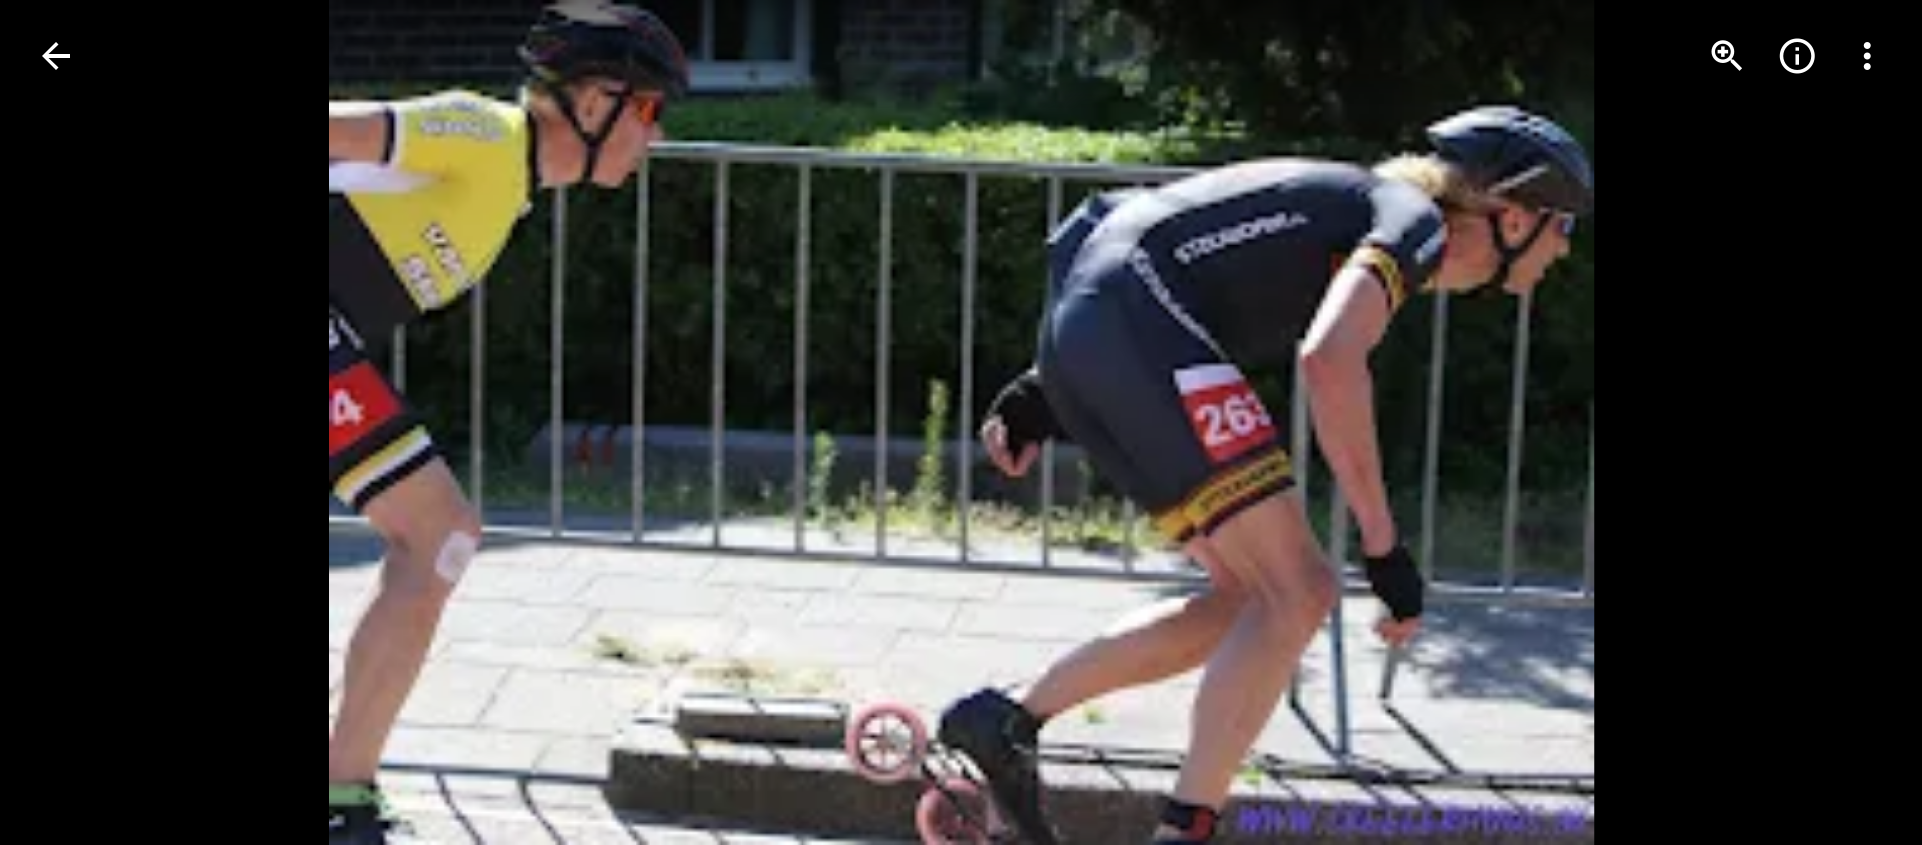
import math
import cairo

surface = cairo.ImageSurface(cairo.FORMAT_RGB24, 1922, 845)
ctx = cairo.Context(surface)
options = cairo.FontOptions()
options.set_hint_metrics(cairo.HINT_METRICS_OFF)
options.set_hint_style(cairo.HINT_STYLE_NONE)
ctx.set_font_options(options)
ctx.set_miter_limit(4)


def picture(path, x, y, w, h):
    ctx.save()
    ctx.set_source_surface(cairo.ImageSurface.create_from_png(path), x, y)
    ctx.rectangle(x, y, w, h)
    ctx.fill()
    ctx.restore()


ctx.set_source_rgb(0, 0, 0)
ctx.paint()
picture("img4.png", 329, 0, 1266, 845)
gradient = cairo.LinearGradient(962, 0, 962, 112)
gradient.add_color_stop_rgba(0, 0, 0, 0, 0.6)
gradient.add_color_stop_rgba(1, 0, 0, 0, 0)
ctx.set_source(gradient)
ctx.rectangle(329, 0, 1266, 108)
ctx.fill()
ctx.set_source_rgb(1, 1, 1)
ctx.new_path()
ctx.move_to(70, 54)
ctx.line_to(48.5, 54)
ctx.line_to(58.5, 44.5)
ctx.line_to(56, 42)
ctx.line_to(42, 56)
ctx.line_to(56, 70)
ctx.line_to(58.5, 67.5)
ctx.line_to(48.5, 58)
ctx.line_to(70, 58)
ctx.close_path()
ctx.fill()
picture("img1.png", 1711, 40, 31, 31)
picture("img2.png", 1779, 38, 36, 36)
picture("img3.png", 1863, 42, 8, 28)
surface.write_to_png("page.png")
